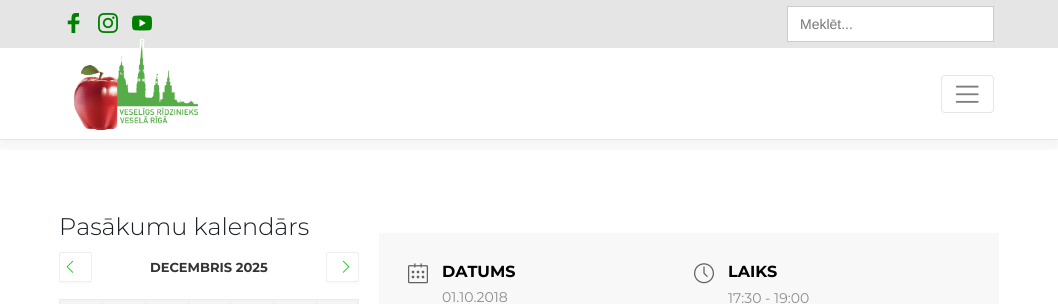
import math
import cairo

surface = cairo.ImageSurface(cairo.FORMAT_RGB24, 1058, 304)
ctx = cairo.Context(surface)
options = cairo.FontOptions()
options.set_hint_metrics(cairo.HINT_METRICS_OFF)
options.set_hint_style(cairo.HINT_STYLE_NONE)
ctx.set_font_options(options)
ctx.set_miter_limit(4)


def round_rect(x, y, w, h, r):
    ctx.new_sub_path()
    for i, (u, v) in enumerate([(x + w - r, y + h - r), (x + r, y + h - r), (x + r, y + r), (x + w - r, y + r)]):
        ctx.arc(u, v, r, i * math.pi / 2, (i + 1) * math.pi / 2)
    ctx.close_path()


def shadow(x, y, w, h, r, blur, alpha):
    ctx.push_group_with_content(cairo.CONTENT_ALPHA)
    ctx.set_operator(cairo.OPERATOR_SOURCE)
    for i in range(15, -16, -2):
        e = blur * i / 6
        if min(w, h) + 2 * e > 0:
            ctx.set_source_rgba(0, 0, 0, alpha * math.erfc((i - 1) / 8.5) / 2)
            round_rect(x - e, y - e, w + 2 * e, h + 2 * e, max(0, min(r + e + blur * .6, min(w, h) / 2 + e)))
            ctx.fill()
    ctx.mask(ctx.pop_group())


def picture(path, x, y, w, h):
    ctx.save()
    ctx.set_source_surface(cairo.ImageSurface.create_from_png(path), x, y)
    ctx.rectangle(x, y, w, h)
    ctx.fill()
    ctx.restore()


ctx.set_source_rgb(1, 1, 1)
ctx.paint()
ctx.set_source_rgb(0.898, 0.898, 0.898)
ctx.rectangle(0, 0, 1058, 48)
ctx.fill()
ctx.save()
ctx.rectangle(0, 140, 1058, 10)
ctx.clip()
ctx.set_source_rgb(0, 0, 0)
shadow(0, 56, 1058, 92, 0, 7.5, 0.05)
ctx.restore()
picture("img1.png", 67, 13, 13, 20)
picture("img2.png", 98, 13, 20, 20)
picture("img3.png", 132, 15, 20, 16)
ctx.set_source_rgb(1, 1, 1)
ctx.rectangle(787.5, 6.5, 206, 35)
ctx.fill_preserve()
ctx.set_source_rgb(0.8, 0.8, 0.8)
ctx.set_line_width(1)
ctx.stroke()
ctx.select_font_face("Liberation Sans")
ctx.set_font_size(14)
ctx.set_source_rgb(0.459, 0.459, 0.459)
ctx.move_to(800, 29)
ctx.show_text("Meklēt...")
ctx.set_source_rgb(0.902, 0.902, 0.902)
ctx.rectangle(0, 139, 1058, 1)
ctx.fill()
picture("img4.png", 73, 38, 125, 93)
round_rect(941.5, 75.5, 52, 37, 3.5)
ctx.stroke()
picture("img5.png", 955, 85, 24, 18)
ctx.select_font_face("Montserrat Light")
ctx.set_font_size(24)
ctx.set_source_rgb(0.09, 0.11, 0.141)
ctx.move_to(59, 235)
ctx.show_text("Pasākumu kalendārs")
ctx.set_source_rgb(0.984, 0.984, 0.984)
ctx.new_path()
ctx.move_to(59, 280)
ctx.curve_to(59, 285, 60.5, 284, 66, 284)
ctx.line_to(85, 284)
ctx.curve_to(90.5, 284, 92, 285, 92, 280)
ctx.curve_to(92, 281, 91, 282, 90, 282)
ctx.line_to(61, 282)
ctx.curve_to(60, 282, 59, 281, 59, 280)
ctx.close_path()
ctx.fill()
round_rect(59.5, 252.5, 32, 29, 1.5)
ctx.set_source_rgb(0.933, 0.933, 0.933)
ctx.stroke()
picture("img6.png", 66, 260, 8, 13)
ctx.select_font_face("Montserrat", cairo.FONT_SLANT_NORMAL, cairo.FONT_WEIGHT_BOLD)
ctx.set_font_size(13)
ctx.set_source_rgb(0.2, 0.2, 0.2)
ctx.move_to(150, 272)
ctx.show_text("DECEMBRIS 2025")
ctx.set_source_rgb(0.984, 0.984, 0.984)
ctx.new_path()
ctx.move_to(326, 280)
ctx.curve_to(326, 285, 327.5, 284, 333, 284)
ctx.line_to(352, 284)
ctx.curve_to(357.5, 284, 359, 285, 359, 280)
ctx.curve_to(359, 281, 358, 282, 357, 282)
ctx.line_to(328, 282)
ctx.curve_to(327, 282, 326, 281, 326, 280)
ctx.close_path()
ctx.fill()
round_rect(326.5, 252.5, 32, 29, 1.5)
ctx.set_source_rgb(0.933, 0.933, 0.933)
ctx.stroke()
picture("img7.png", 342, 260, 8, 13)
ctx.set_source_rgb(0.957, 0.957, 0.957)
ctx.rectangle(59, 300, 300, 4)
ctx.fill()
ctx.set_source_rgb(0.918, 0.918, 0.918)
ctx.rectangle(59, 299, 257, 1)
ctx.fill()
ctx.rectangle(59, 299, 1, 5)
ctx.fill()
ctx.rectangle(102, 299, 1, 5)
ctx.fill()
ctx.rectangle(145, 299, 1, 5)
ctx.fill()
ctx.rectangle(188, 299, 1, 5)
ctx.fill()
ctx.rectangle(230, 299, 1, 5)
ctx.fill()
ctx.rectangle(273, 299, 1, 5)
ctx.fill()
ctx.rectangle(316.5, 299.5, 42, 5)
ctx.stroke()
ctx.set_source_rgb(0.969, 0.969, 0.969)
ctx.rectangle(379, 233, 620, 71)
ctx.fill()
picture("img8.png", 408, 263, 20, 21)
ctx.set_font_size(16)
ctx.set_source_rgb(0, 0, 0)
ctx.move_to(442, 277)
ctx.show_text("DATUMS")
ctx.select_font_face("Montserrat")
ctx.set_font_size(14)
ctx.set_source_rgb(0.553, 0.553, 0.553)
ctx.move_to(442, 302)
ctx.show_text("01.10.2018")
picture("img9.png", 694, 263, 20, 21)
ctx.select_font_face("Montserrat", cairo.FONT_SLANT_NORMAL, cairo.FONT_WEIGHT_BOLD)
ctx.set_font_size(16)
ctx.set_source_rgb(0, 0, 0)
ctx.move_to(728, 277)
ctx.show_text("LAIKS")
ctx.select_font_face("Montserrat")
ctx.set_font_size(14)
ctx.set_source_rgb(0.553, 0.553, 0.553)
ctx.move_to(728, 303)
ctx.show_text("17:30 - 19:00")
surface.write_to_png("page.png")
